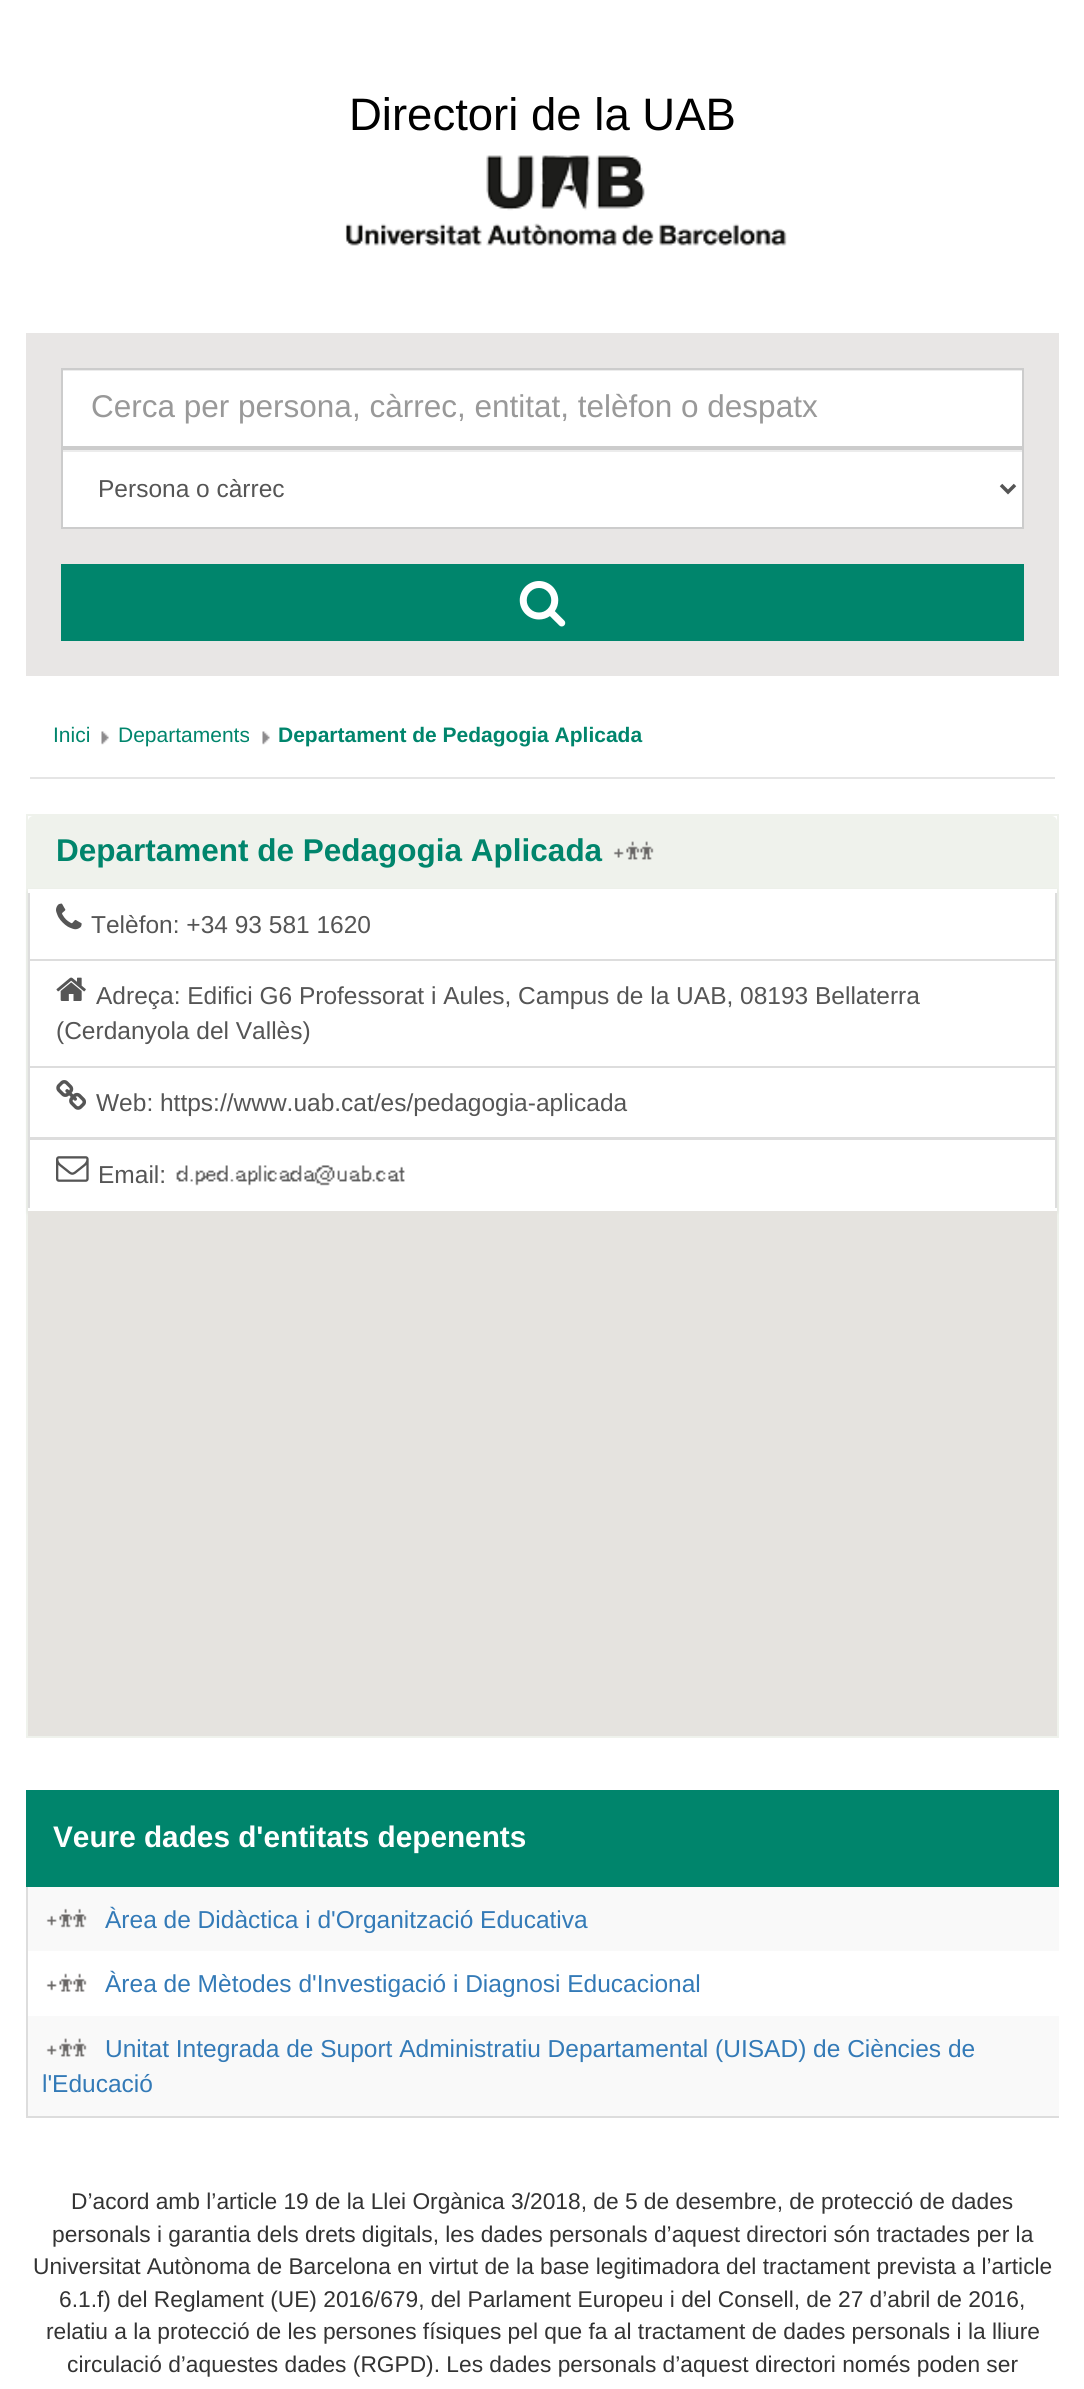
import math
import cairo

surface = cairo.ImageSurface(cairo.FORMAT_RGB24, 1084, 2389)
ctx = cairo.Context(surface)
options = cairo.FontOptions()
options.set_hint_metrics(cairo.HINT_METRICS_OFF)
options.set_hint_style(cairo.HINT_STYLE_NONE)
ctx.set_font_options(options)
ctx.set_miter_limit(4)


def round_rect(x, y, w, h, r):
    ctx.new_sub_path()
    for i, (u, v) in enumerate([(x + w - r, y + h - r), (x + r, y + h - r), (x + r, y + r), (x + w - r, y + r)]):
        ctx.arc(u, v, r, i * math.pi / 2, (i + 1) * math.pi / 2)
    ctx.close_path()


def shadow(x, y, w, h, r, blur, alpha):
    ctx.push_group_with_content(cairo.CONTENT_ALPHA)
    ctx.set_operator(cairo.OPERATOR_SOURCE)
    for i in range(15, -16, -2):
        e = blur * i / 6
        if min(w, h) + 2 * e > 0:
            ctx.set_source_rgba(0, 0, 0, alpha * math.erfc((i - 1) / 8.5) / 2)
            round_rect(x - e, y - e, w + 2 * e, h + 2 * e, max(0, min(r + e + blur * .6, min(w, h) / 2 + e)))
            ctx.fill()
    ctx.mask(ctx.pop_group())


def picture(path, x, y, w, h):
    ctx.save()
    ctx.set_source_surface(cairo.ImageSurface.create_from_png(path), x, y)
    ctx.rectangle(x, y, w, h)
    ctx.fill()
    ctx.restore()


ctx.set_source_rgb(1, 1, 1)
ctx.paint()
ctx.select_font_face("Liberation Sans")
ctx.set_font_size(45.5)
ctx.set_source_rgb(0, 0, 0)
ctx.move_to(349, 130)
ctx.show_text("Directori de la UAB")
picture("img1.png", 345, 155, 442, 91)
ctx.set_source_rgb(0.91, 0.902, 0.898)
ctx.rectangle(26, 333, 1033, 343)
ctx.fill()
ctx.set_source_rgb(1, 1, 1)
ctx.rectangle(63, 371, 959, 75)
ctx.fill()
ctx.set_source_rgb(0.925, 0.925, 0.925)
ctx.rectangle(63, 370, 959, 1)
ctx.fill()
ctx.rectangle(62, 369, 961, 78)
ctx.set_source_rgb(0.8, 0.8, 0.8)
ctx.stroke()
ctx.set_font_size(31.5)
ctx.set_source_rgb(0.6, 0.6, 0.6)
ctx.move_to(91, 417)
ctx.show_text("Cerca per persona, càrrec, entitat, telèfon o despatx")
ctx.set_source_rgb(1, 1, 1)
ctx.rectangle(63, 452, 959, 75)
ctx.fill()
ctx.set_source_rgb(0.925, 0.925, 0.925)
ctx.rectangle(63, 450, 959, 2)
ctx.fill()
ctx.rectangle(62, 449, 961, 79)
ctx.set_source_rgb(0.8, 0.8, 0.8)
ctx.stroke()
ctx.new_path()
ctx.move_to(1001, 485)
ctx.line_to(1008, 492)
ctx.line_to(1015, 485)
ctx.set_source_rgb(0.333, 0.333, 0.333)
ctx.set_line_width(3.5)
ctx.stroke()
ctx.set_font_size(24.5)
ctx.move_to(98, 497)
ctx.show_text("Persona o càrrec")
ctx.set_source_rgb(0, 0.522, 0.424)
ctx.rectangle(61, 564, 963, 77)
ctx.fill()
picture("img2.png", 519, 581, 47, 46)
ctx.set_source_rgb(0.898, 0.898, 0.898)
ctx.rectangle(30, 777, 1025, 2)
ctx.fill()
ctx.set_font_size(21)
ctx.set_source_rgb(0, 0.522, 0.424)
ctx.move_to(53, 742)
ctx.show_text("Inici")
picture("img3.png", 101, 731, 8, 14)
ctx.move_to(118, 742)
ctx.show_text("Departaments")
picture("img3.png", 262, 731, 8, 14)
ctx.select_font_face("Liberation Sans", cairo.FONT_SLANT_NORMAL, cairo.FONT_WEIGHT_BOLD)
ctx.move_to(278, 742)
ctx.show_text("Departament de Pedagogia Aplicada")
ctx.rectangle(27, 815, 1031, 922)
ctx.set_source_rgb(0.937, 0.949, 0.922)
ctx.set_line_width(2)
ctx.stroke()
ctx.new_path()
ctx.move_to(33, 817)
ctx.line_to(1052, 817)
ctx.curve_to(1054, 817, 1056, 819, 1056, 821)
ctx.line_to(1056, 888)
ctx.line_to(29, 888)
ctx.line_to(29, 821)
ctx.curve_to(29, 819, 31, 817, 33, 817)
ctx.close_path()
ctx.fill_preserve()
ctx.stroke()
ctx.set_font_size(31.5)
ctx.set_source_rgb(0, 0.522, 0.424)
ctx.move_to(56, 861)
ctx.show_text("Departament de Pedagogia Aplicada")
picture("img4.png", 613, 841, 41, 19)
ctx.save()
ctx.set_fill_rule(cairo.FILL_RULE_EVEN_ODD)
ctx.new_path()
ctx.move_to(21, 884)
ctx.line_to(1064, 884)
ctx.line_to(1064, 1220)
ctx.line_to(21, 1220)
ctx.close_path()
ctx.move_to(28, 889)
ctx.line_to(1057, 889)
ctx.line_to(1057, 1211)
ctx.line_to(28, 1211)
ctx.close_path()
ctx.clip()
ctx.set_source_rgb(0, 0, 0)
shadow(28, 891, 1029, 322, 0, 2, 0.07)
ctx.restore()
ctx.set_source_rgb(0.867, 0.867, 0.867)
ctx.rectangle(1055, 893, 2, 68)
ctx.fill()
ctx.rectangle(28, 893, 2, 68)
ctx.fill()
picture("img5.png", 56, 903, 26, 27)
ctx.select_font_face("Liberation Sans")
ctx.set_font_size(24.5)
ctx.set_source_rgb(0.333, 0.333, 0.333)
ctx.move_to(91, 933)
ctx.show_text("Telèfon: +34 93 581 1620")
ctx.rectangle(29, 960, 1027, 107)
ctx.set_source_rgb(0.867, 0.867, 0.867)
ctx.stroke()
picture("img6.png", 56, 977, 30, 24)
ctx.set_source_rgb(0.333, 0.333, 0.333)
ctx.move_to(96, 1004)
ctx.show_text("Adreça: Edifici G6 Professorat i Aules, Campus de la UAB, 08193 Bellaterra")
ctx.move_to(56, 1039)
ctx.show_text("(Cerdanyola del Vallès)")
ctx.rectangle(29, 1067, 1027, 71)
ctx.set_source_rgb(0.867, 0.867, 0.867)
ctx.stroke()
picture("img7.png", 56, 1080, 30, 30)
ctx.set_source_rgb(0.333, 0.333, 0.333)
ctx.move_to(96, 1111)
ctx.show_text("Web: https://www.uab.cat/es/pedagogia-aplicada")
ctx.set_source_rgb(0.867, 0.867, 0.867)
ctx.rectangle(28, 1139, 1029, 1)
ctx.fill()
ctx.rectangle(1055, 1138, 2, 70)
ctx.fill()
ctx.rectangle(28, 1138, 2, 70)
ctx.fill()
picture("img8.png", 56, 1156, 33, 26)
ctx.set_source_rgb(0.333, 0.333, 0.333)
ctx.move_to(98, 1183)
ctx.show_text("Email:")
picture("img9.png", 176, 1165, 229, 21)
ctx.set_source_rgb(0.898, 0.89, 0.875)
ctx.rectangle(28, 1211, 1029, 525)
ctx.fill()
ctx.set_source_rgb(0, 0.522, 0.424)
ctx.rectangle(26, 1790, 1033, 97)
ctx.fill()
ctx.select_font_face("Liberation Sans", cairo.FONT_SLANT_NORMAL, cairo.FONT_WEIGHT_BOLD)
ctx.set_font_size(29.75)
ctx.set_source_rgb(1, 1, 1)
ctx.move_to(53, 1847)
ctx.show_text("Veure dades d'entitats depenents")
ctx.set_source_rgb(0.867, 0.867, 0.867)
ctx.rectangle(26, 2116, 1033, 2)
ctx.fill()
ctx.rectangle(26, 1887, 2, 231)
ctx.fill()
ctx.set_source_rgb(0.976, 0.976, 0.976)
ctx.rectangle(28, 1887, 1031, 64)
ctx.fill()
picture("img10.png", 46, 1908, 41, 20)
ctx.select_font_face("Liberation Sans")
ctx.set_font_size(24.5)
ctx.set_source_rgb(0.2, 0.478, 0.718)
ctx.move_to(105, 1928)
ctx.show_text("Àrea de Didàctica i d'Organització Educativa")
picture("img11.png", 46, 1973, 41, 19)
ctx.move_to(105, 1992)
ctx.show_text("Àrea de Mètodes d'Investigació i Diagnosi Educacional")
ctx.set_source_rgb(0.976, 0.976, 0.976)
ctx.rectangle(28, 2016, 1031, 100)
ctx.fill()
picture("img12.png", 46, 2038, 41, 19)
ctx.set_source_rgb(0.2, 0.478, 0.718)
ctx.move_to(105, 2057)
ctx.show_text("Unitat Integrada de Suport Administratiu Departamental (UISAD) de Ciències de")
ctx.move_to(42, 2092)
ctx.show_text("l'Educació")
ctx.set_font_size(22.75)
ctx.set_source_rgb(0.2, 0.2, 0.2)
ctx.move_to(71, 2209)
ctx.show_text("D’acord amb l’article 19 de la Llei Orgànica 3/2018, de 5 de desembre, de protecció de dades")
ctx.move_to(52, 2242)
ctx.show_text("personals i garantia dels drets digitals, les dades personals d’aquest directori són tractades per la")
ctx.move_to(33, 2274)
ctx.show_text("Universitat Autònoma de Barcelona en virtut de la base legitimadora del tractament prevista a l’article")
ctx.move_to(59, 2307)
ctx.show_text("6.1.f) del Reglament (UE) 2016/679, del Parlament Europeu i del Consell, de 27 d’abril de 2016,")
ctx.move_to(46, 2339)
ctx.show_text("relatiu a la protecció de les persones físiques pel que fa al tractament de dades personals i la lliure")
ctx.move_to(67, 2372)
ctx.show_text("circulació d’aquestes dades (RGPD). Les dades personals d’aquest directori només poden ser")
surface.write_to_png("page.png")
